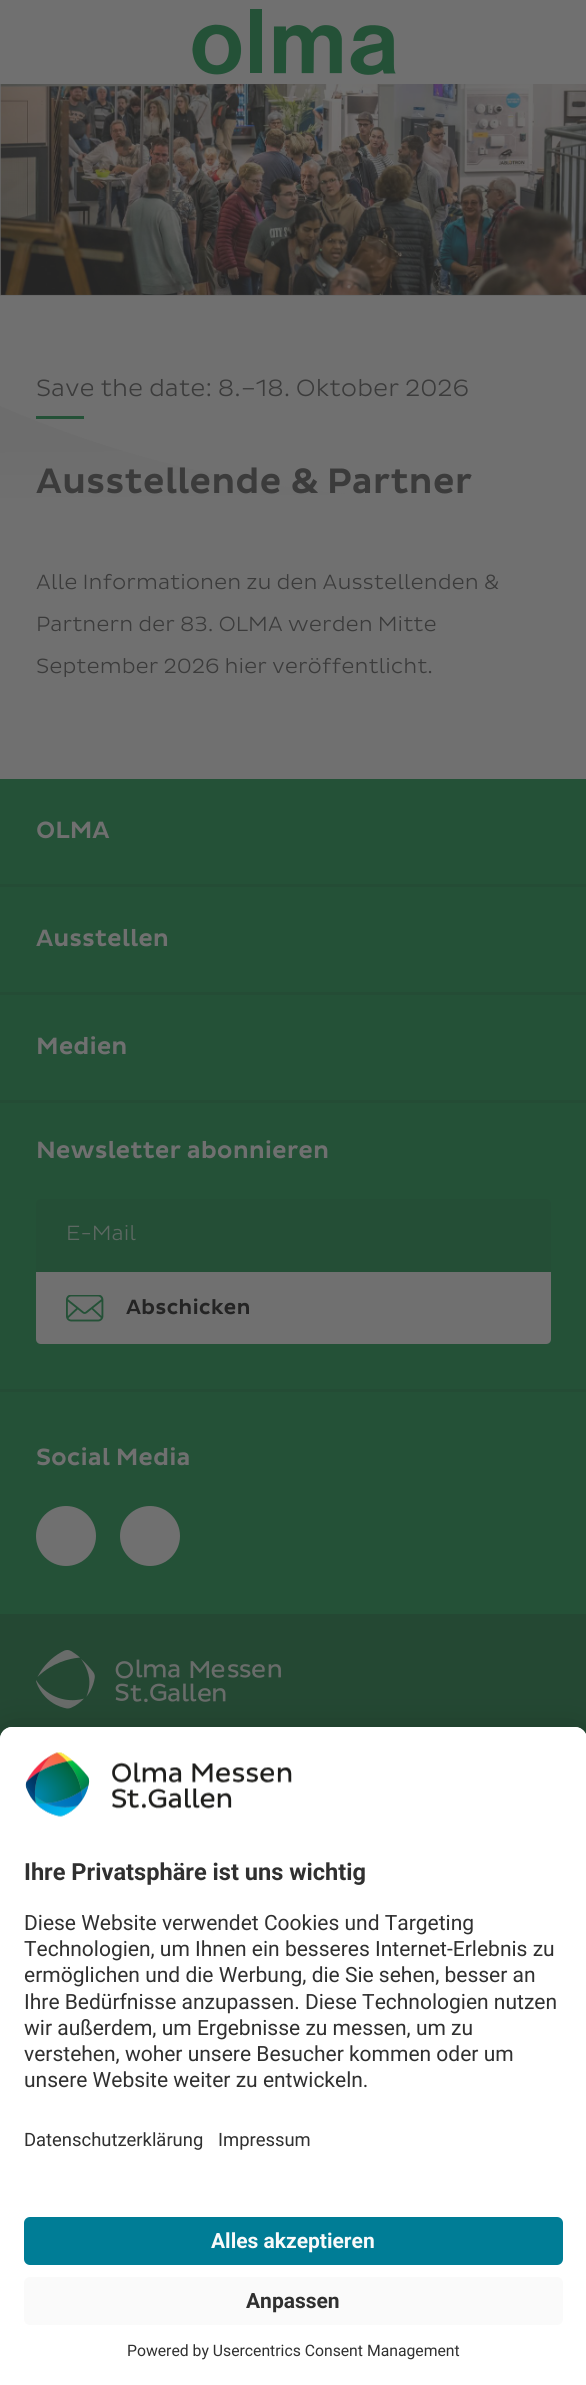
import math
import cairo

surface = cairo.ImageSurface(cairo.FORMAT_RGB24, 586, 2385)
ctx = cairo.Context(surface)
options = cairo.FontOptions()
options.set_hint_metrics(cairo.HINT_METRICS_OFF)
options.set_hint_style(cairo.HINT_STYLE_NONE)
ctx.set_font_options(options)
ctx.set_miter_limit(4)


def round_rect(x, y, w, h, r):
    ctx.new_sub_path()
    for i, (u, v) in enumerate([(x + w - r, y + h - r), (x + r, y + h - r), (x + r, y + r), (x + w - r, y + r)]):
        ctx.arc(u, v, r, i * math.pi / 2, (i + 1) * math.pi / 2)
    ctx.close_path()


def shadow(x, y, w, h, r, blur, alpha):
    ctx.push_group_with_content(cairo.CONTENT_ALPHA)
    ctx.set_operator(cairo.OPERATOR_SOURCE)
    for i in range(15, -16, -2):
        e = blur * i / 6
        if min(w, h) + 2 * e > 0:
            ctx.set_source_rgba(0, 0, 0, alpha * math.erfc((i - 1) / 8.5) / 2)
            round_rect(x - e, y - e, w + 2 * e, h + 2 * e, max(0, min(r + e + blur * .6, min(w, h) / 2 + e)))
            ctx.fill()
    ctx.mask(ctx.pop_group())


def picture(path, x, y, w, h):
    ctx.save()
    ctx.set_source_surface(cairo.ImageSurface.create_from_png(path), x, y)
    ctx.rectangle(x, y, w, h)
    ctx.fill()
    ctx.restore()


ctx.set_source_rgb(0.439, 0.439, 0.439)
ctx.paint()
picture("img1.png", 192, 9, 204, 66)
ctx.set_source_rgb(0.412, 0.412, 0.412)
ctx.rectangle(0, 84, 586, 212)
ctx.fill()
picture("img2.png", 0, 84, 586, 211)
ctx.select_font_face("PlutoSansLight")
ctx.set_font_size(24)
ctx.set_source_rgb(0.231, 0.231, 0.231)
ctx.move_to(36, 396)
ctx.show_text("Save the date: 8.–18. Oktober 2026")
gradient = cairo.LinearGradient(59, 438, 60, 537)
gradient.add_color_stop_rgba(0, 0.427, 0.427, 0.427, 1)
gradient.add_color_stop_rgba(0.7, 0.439, 0.439, 0.439, 1)
ctx.set_source(gradient)
ctx.set_fill_rule(cairo.FILL_RULE_EVEN_ODD)
ctx.new_path()
ctx.move_to(586, 498)
ctx.line_to(442, 498)
ctx.curve_to(286, 498, 137, 465, 0, 406)
ctx.line_to(0, 550)
ctx.line_to(586, 550)
ctx.close_path()
ctx.fill()
ctx.set_source_rgb(0.141, 0.318, 0.216)
ctx.rectangle(36, 416, 48, 3)
ctx.fill()
ctx.select_font_face("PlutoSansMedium")
ctx.set_font_size(36)
ctx.set_source_rgb(0.231, 0.231, 0.231)
ctx.move_to(36, 493)
ctx.show_text("Ausstellende & Partner")
ctx.select_font_face("PlutoSansLight")
ctx.set_font_size(21)
ctx.move_to(36, 589)
ctx.show_text("Alle Informationen zu den Ausstellenden &")
ctx.move_to(36, 631)
ctx.show_text("Partnern der 83. OLMA werden Mitte")
ctx.move_to(36, 673)
ctx.show_text("September 2026 hier veröffentlicht.")
ctx.set_source_rgb(0.141, 0.318, 0.216)
ctx.rectangle(0, 779, 586, 835)
ctx.fill()
ctx.select_font_face("PlutoSansMedium")
ctx.set_font_size(24)
ctx.set_source_rgb(0.439, 0.439, 0.439)
ctx.move_to(36, 838)
ctx.show_text("OLMA")
ctx.set_source_rgb(0.141, 0.298, 0.208)
ctx.rectangle(0, 884, 586, 3)
ctx.fill()
ctx.set_source_rgb(0.439, 0.439, 0.439)
ctx.move_to(36, 946)
ctx.show_text("Ausstellen")
ctx.set_source_rgb(0.141, 0.298, 0.208)
ctx.rectangle(0, 992, 586, 3)
ctx.fill()
ctx.set_source_rgb(0.439, 0.439, 0.439)
ctx.move_to(36, 1054)
ctx.show_text("Medien")
ctx.set_source_rgb(0.141, 0.298, 0.208)
ctx.rectangle(0, 1100, 586, 3)
ctx.fill()
ctx.set_source_rgb(0.439, 0.439, 0.439)
ctx.move_to(36, 1158)
ctx.show_text("Newsletter abonnieren")
ctx.set_source_rgb(0.141, 0.306, 0.212)
ctx.new_path()
ctx.move_to(41, 1199)
ctx.line_to(546, 1199)
ctx.curve_to(549, 1199, 551, 1201, 551, 1204)
ctx.line_to(551, 1272)
ctx.line_to(36, 1272)
ctx.line_to(36, 1204)
ctx.curve_to(36, 1201, 38, 1199, 41, 1199)
ctx.close_path()
ctx.fill()
ctx.select_font_face("PlutoSansLight")
ctx.set_font_size(21)
ctx.set_source_rgb(0.365, 0.408, 0.384)
ctx.move_to(66, 1240)
ctx.show_text("E-Mail")
ctx.set_source_rgb(0.439, 0.439, 0.439)
ctx.new_path()
ctx.move_to(36, 1272)
ctx.line_to(551, 1272)
ctx.line_to(551, 1339)
ctx.curve_to(551, 1342, 549, 1344, 546, 1344)
ctx.line_to(41, 1344)
ctx.curve_to(38, 1344, 36, 1342, 36, 1339)
ctx.close_path()
ctx.fill()
picture("img3.png", 66, 1295, 38, 27)
ctx.select_font_face("PlutoSansMedium")
ctx.set_source_rgb(0.141, 0.141, 0.141)
ctx.move_to(126, 1314)
ctx.show_text("Abschicken")
ctx.set_source_rgb(0.141, 0.298, 0.208)
ctx.rectangle(0, 1389, 586, 3)
ctx.fill()
ctx.set_font_size(24)
ctx.set_source_rgb(0.439, 0.439, 0.439)
ctx.move_to(36, 1465)
ctx.show_text("Social Media")
ctx.new_path()
ctx.arc(66, 1536, 30, 0, 2 * math.pi)
ctx.fill()
ctx.arc(150, 1536, 30, 0, 2 * math.pi)
ctx.fill()
ctx.set_source_rgb(0.141, 0.282, 0.2)
ctx.rectangle(0, 1614, 586, 125)
ctx.fill()
picture("img4.png", 36, 1650, 245, 59)
ctx.set_source_rgb(0, 0, 0)
shadow(0, 1734, 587, 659, 12, 19.5, 0.22)
ctx.set_source_rgb(1, 1, 1)
ctx.new_path()
ctx.move_to(12, 1727)
ctx.line_to(575, 1727)
ctx.curve_to(581.5, 1727, 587, 1732.5, 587, 1739)
ctx.line_to(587, 2385)
ctx.line_to(0, 2385)
ctx.line_to(0, 1739)
ctx.curve_to(0, 1732.5, 5.5, 1727, 12, 1727)
ctx.close_path()
ctx.fill()
ctx.new_path()
ctx.move_to(12, 1727)
ctx.line_to(575, 1727)
ctx.curve_to(581.5, 1727, 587, 1732.5, 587, 1739)
ctx.line_to(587, 2199)
ctx.line_to(0, 2199)
ctx.line_to(0, 1739)
ctx.curve_to(0, 1732.5, 5.5, 1727, 12, 1727)
ctx.close_path()
ctx.fill()
picture("img5.png", 25, 1752, 267, 65)
ctx.select_font_face("Roboto", cairo.FONT_SLANT_NORMAL, cairo.FONT_WEIGHT_BOLD)
ctx.set_font_size(23.6)
ctx.set_source_rgb(0.188, 0.188, 0.188)
ctx.move_to(24, 1880)
ctx.show_text("Ihre Privatsphäre ist uns wichtig")
ctx.select_font_face("Roboto")
ctx.set_font_size(21)
ctx.move_to(24, 1930)
ctx.show_text("Diese Website verwendet Cookies und Targeting")
ctx.move_to(24, 1956)
ctx.show_text("Technologien, um Ihnen ein besseres Internet-Erlebnis zu")
ctx.move_to(24, 1982)
ctx.show_text("ermöglichen und die Werbung, die Sie sehen, besser an")
ctx.move_to(24, 2009)
ctx.show_text("Ihre Bedürfnisse anzupassen. Diese Technologien nutzen")
ctx.move_to(24, 2035)
ctx.show_text("wir außerdem, um Ergebnisse zu messen, um zu")
ctx.move_to(24, 2061)
ctx.show_text("verstehen, woher unsere Besucher kommen oder um")
ctx.move_to(24, 2087)
ctx.show_text("unsere Website weiter zu entwickeln.")
ctx.set_font_size(18.4)
ctx.move_to(24, 2146)
ctx.show_text("Datenschutzerklärung")
ctx.move_to(218, 2146)
ctx.show_text("Impressum")
ctx.set_source_rgb(0, 0.49, 0.588)
round_rect(24, 2217, 539, 48, 6)
ctx.fill()
ctx.select_font_face("Roboto", cairo.FONT_SLANT_NORMAL, cairo.FONT_WEIGHT_BOLD)
ctx.set_font_size(21)
ctx.set_source_rgb(0.98, 0.98, 0.98)
ctx.move_to(211, 2248)
ctx.show_text("Alles akzeptieren")
round_rect(24, 2277, 539, 48, 6)
ctx.fill()
ctx.set_source_rgb(0.188, 0.188, 0.188)
ctx.move_to(246, 2308)
ctx.show_text("Anpassen")
ctx.select_font_face("Roboto")
ctx.set_font_size(15.75)
ctx.move_to(127, 2356)
ctx.show_text("Powered by Usercentrics Consent Management")
surface.write_to_png("page.png")
